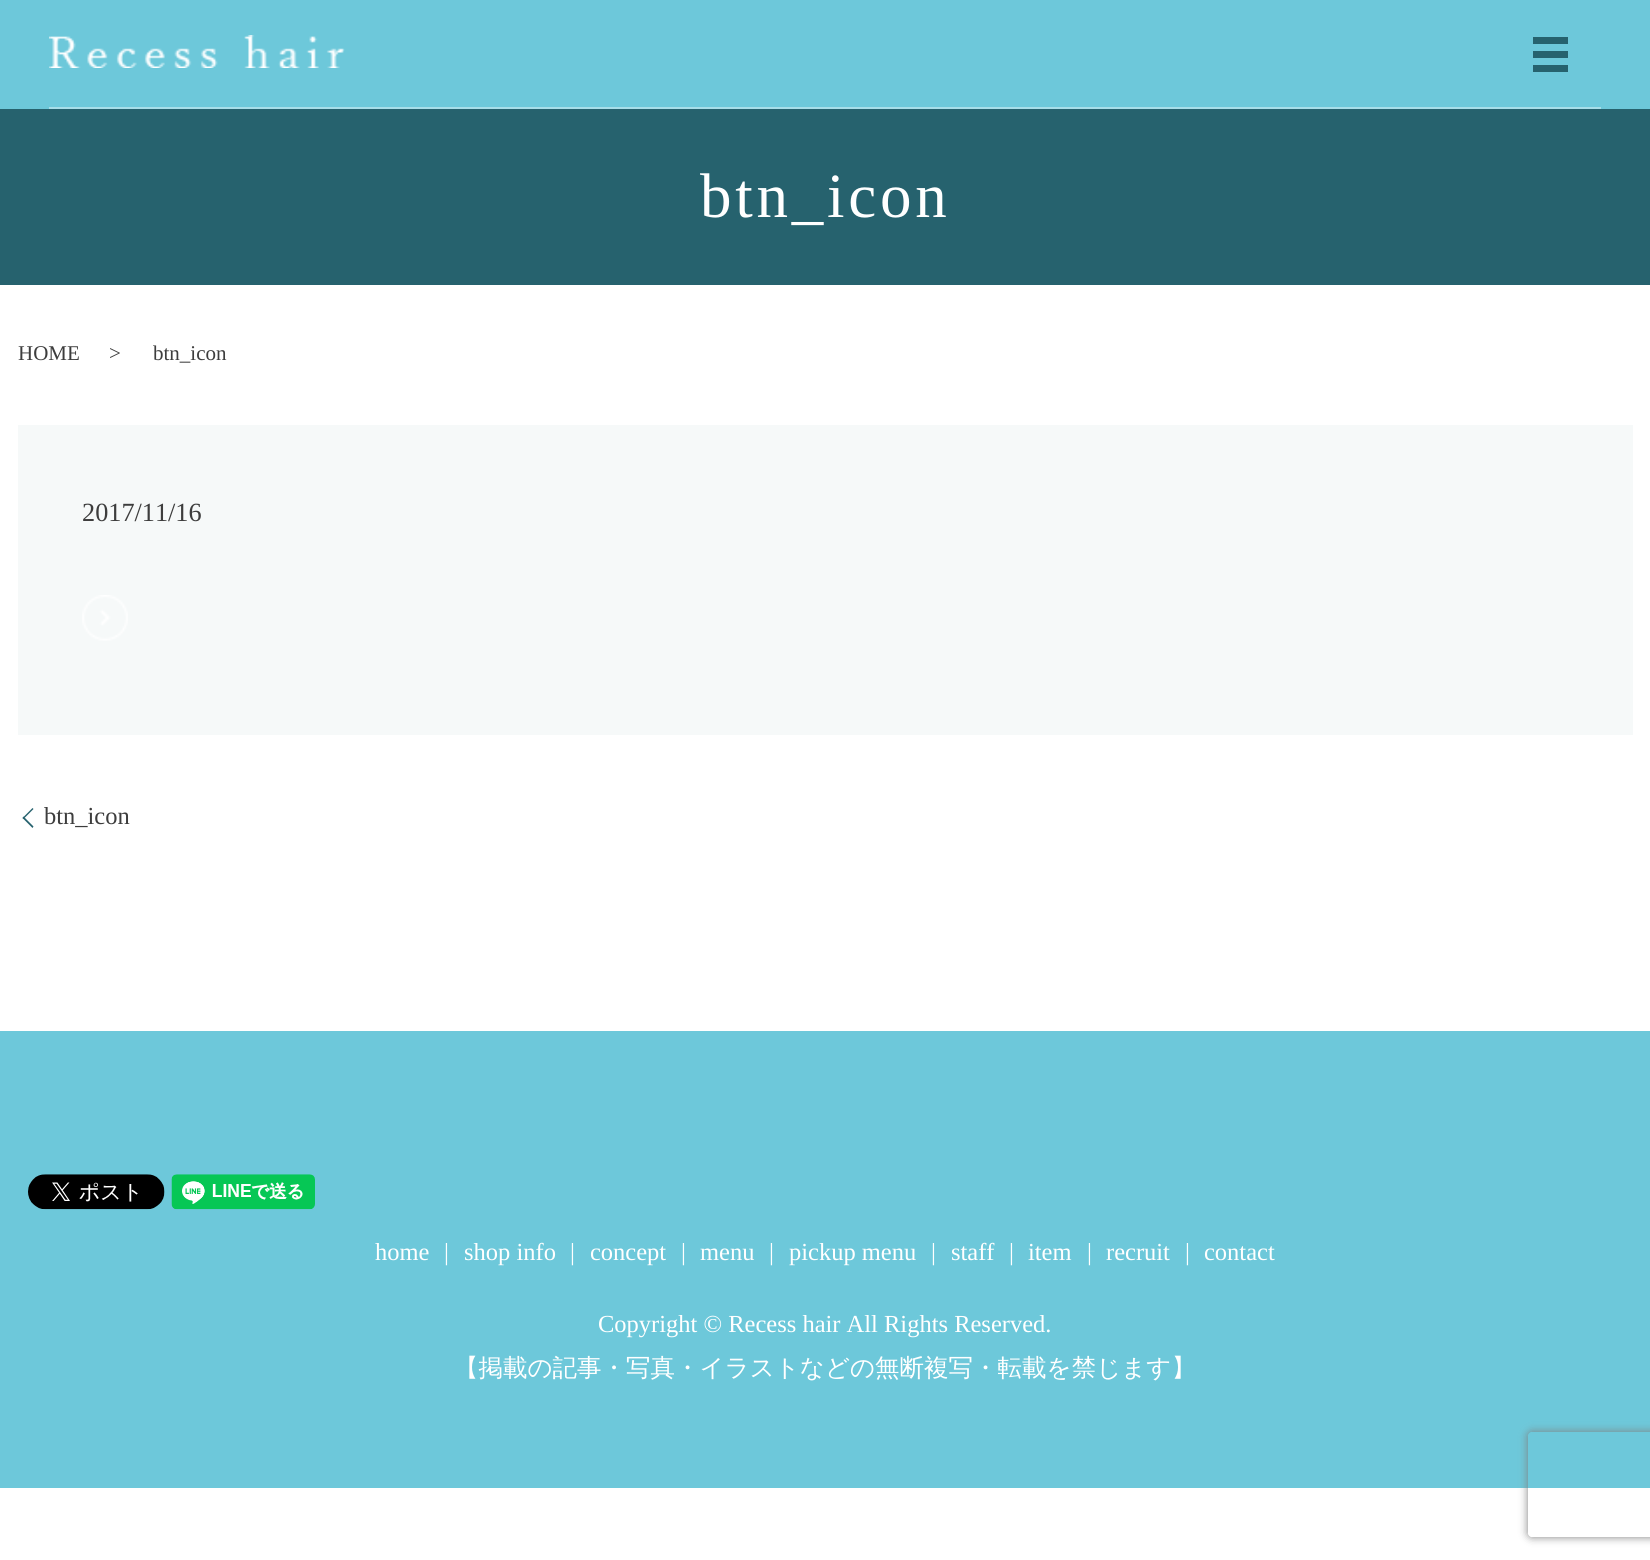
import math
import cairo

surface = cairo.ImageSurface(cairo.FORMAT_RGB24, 1650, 1560)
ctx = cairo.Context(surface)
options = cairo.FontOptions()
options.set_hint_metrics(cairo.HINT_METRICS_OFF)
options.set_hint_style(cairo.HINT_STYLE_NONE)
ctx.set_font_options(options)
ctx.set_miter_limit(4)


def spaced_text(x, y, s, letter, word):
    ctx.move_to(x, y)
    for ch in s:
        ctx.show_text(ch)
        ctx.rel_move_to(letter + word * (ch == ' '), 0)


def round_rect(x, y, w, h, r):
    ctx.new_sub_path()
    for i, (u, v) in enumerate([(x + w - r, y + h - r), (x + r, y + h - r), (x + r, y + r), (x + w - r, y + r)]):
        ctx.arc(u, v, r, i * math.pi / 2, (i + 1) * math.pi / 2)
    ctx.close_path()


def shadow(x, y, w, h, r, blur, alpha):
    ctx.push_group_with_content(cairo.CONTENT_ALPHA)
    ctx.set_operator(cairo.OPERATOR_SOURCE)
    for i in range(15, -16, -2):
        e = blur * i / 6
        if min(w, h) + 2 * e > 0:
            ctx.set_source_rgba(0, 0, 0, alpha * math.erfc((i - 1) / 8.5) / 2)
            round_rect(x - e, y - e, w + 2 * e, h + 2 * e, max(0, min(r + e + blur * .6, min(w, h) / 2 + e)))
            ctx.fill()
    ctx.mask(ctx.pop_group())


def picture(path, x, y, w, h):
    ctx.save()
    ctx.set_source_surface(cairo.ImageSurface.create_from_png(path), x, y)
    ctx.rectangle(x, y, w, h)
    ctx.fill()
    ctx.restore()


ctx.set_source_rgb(1, 1, 1)
ctx.paint()
ctx.set_source_rgb(0.427, 0.784, 0.855)
ctx.rectangle(0, 0, 1650, 109)
ctx.fill()
picture("img1.png", 49, 35, 296, 33)
ctx.set_source_rgb(0.655, 0.871, 0.914)
ctx.rectangle(49, 107, 1552, 2)
ctx.fill()
ctx.set_source_rgb(0.149, 0.384, 0.431)
ctx.rectangle(1533, 37, 35, 7)
ctx.fill()
ctx.rectangle(1533, 51, 35, 7)
ctx.fill()
ctx.rectangle(1533, 65, 35, 7)
ctx.fill()
ctx.rectangle(0, 109, 1650, 176)
ctx.fill()
ctx.select_font_face("Liberation Serif")
ctx.set_font_size(63)
ctx.set_source_rgb(1, 1, 1)
spaced_text(700, 217, "btn_icon", 3.75, 0)
ctx.set_font_size(21)
ctx.set_source_rgb(0.239, 0.239, 0.239)
ctx.move_to(18, 360)
ctx.show_text("HOME")
ctx.move_to(109, 360)
ctx.show_text(">")
ctx.move_to(153, 360)
ctx.show_text("btn_icon")
ctx.set_source_rgb(0.961, 0.973, 0.976)
ctx.rectangle(18, 425, 1615, 310)
ctx.fill()
ctx.set_font_size(26.25)
ctx.set_source_rgb(0.239, 0.239, 0.239)
ctx.move_to(82, 521)
ctx.show_text("2017/11/16")
picture("img2.png", 82, 595, 46, 46)
ctx.set_source_rgb(0.149, 0.384, 0.431)
ctx.new_path()
ctx.move_to(22.5, 818)
ctx.line_to(32.5, 808)
ctx.line_to(33.5, 809)
ctx.line_to(23.5, 819)
ctx.close_path()
ctx.fill()
ctx.set_font_size(24.5)
ctx.set_source_rgb(0.239, 0.239, 0.239)
ctx.move_to(44, 824)
ctx.show_text("btn_icon")
ctx.set_source_rgb(0.149, 0.384, 0.431)
ctx.new_path()
ctx.move_to(32.5, 828)
ctx.line_to(22.5, 818)
ctx.line_to(23.5, 816.5)
ctx.line_to(33.5, 826.5)
ctx.close_path()
ctx.fill()
ctx.set_source_rgb(0.427, 0.784, 0.855)
ctx.rectangle(0, 1031, 1650, 457)
ctx.fill()
picture("img3.png", 28, 1174, 137, 36)
picture("img4.png", 171, 1174, 144, 36)
ctx.set_source_rgb(1, 1, 1)
ctx.move_to(375, 1260)
ctx.show_text("home")
ctx.move_to(444, 1260)
ctx.show_text("|")
ctx.move_to(464, 1260)
ctx.show_text("shop info")
ctx.move_to(570, 1260)
ctx.show_text("|")
ctx.move_to(590, 1260)
ctx.show_text("concept")
ctx.move_to(681, 1260)
ctx.show_text("|")
ctx.move_to(700, 1260)
ctx.show_text("menu")
ctx.move_to(769, 1260)
ctx.show_text("|")
ctx.move_to(789, 1260)
ctx.show_text("pickup menu")
ctx.move_to(931, 1260)
ctx.show_text("|")
ctx.move_to(951, 1260)
ctx.show_text("staff")
ctx.move_to(1009, 1260)
ctx.show_text("|")
ctx.move_to(1028, 1260)
ctx.show_text("item")
ctx.move_to(1087, 1260)
ctx.show_text("|")
ctx.move_to(1106, 1260)
ctx.show_text("recruit")
ctx.move_to(1185, 1260)
ctx.show_text("|")
ctx.move_to(1204, 1260)
ctx.show_text("contact")
ctx.move_to(598, 1332)
ctx.show_text("Copyright © Recess hair All Rights Reserved.")
ctx.select_font_face("WenQuanYi Zen Hei Medium")
ctx.move_to(454, 1376)
ctx.show_text("【掲載の記事・写真・イラストなどの無断複写・転載を禁じます】")
ctx.save()
ctx.set_fill_rule(cairo.FILL_RULE_EVEN_ODD)
ctx.new_path()
ctx.move_to(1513, 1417)
ctx.line_to(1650, 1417)
ctx.line_to(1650, 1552)
ctx.line_to(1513, 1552)
ctx.close_path()
ctx.move_to(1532, 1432)
ctx.line_to(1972, 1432)
ctx.curve_to(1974, 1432, 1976, 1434, 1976, 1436)
ctx.line_to(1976, 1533)
ctx.curve_to(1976, 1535, 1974, 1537, 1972, 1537)
ctx.line_to(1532, 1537)
ctx.curve_to(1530, 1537, 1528, 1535, 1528, 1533)
ctx.line_to(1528, 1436)
ctx.curve_to(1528, 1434, 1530, 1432, 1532, 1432)
ctx.close_path()
ctx.clip()
ctx.set_source_rgb(0.502, 0.502, 0.502)
shadow(1528, 1432, 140, 105, 4, 4.5, 1)
ctx.restore()
surface.write_to_png("page.png")
